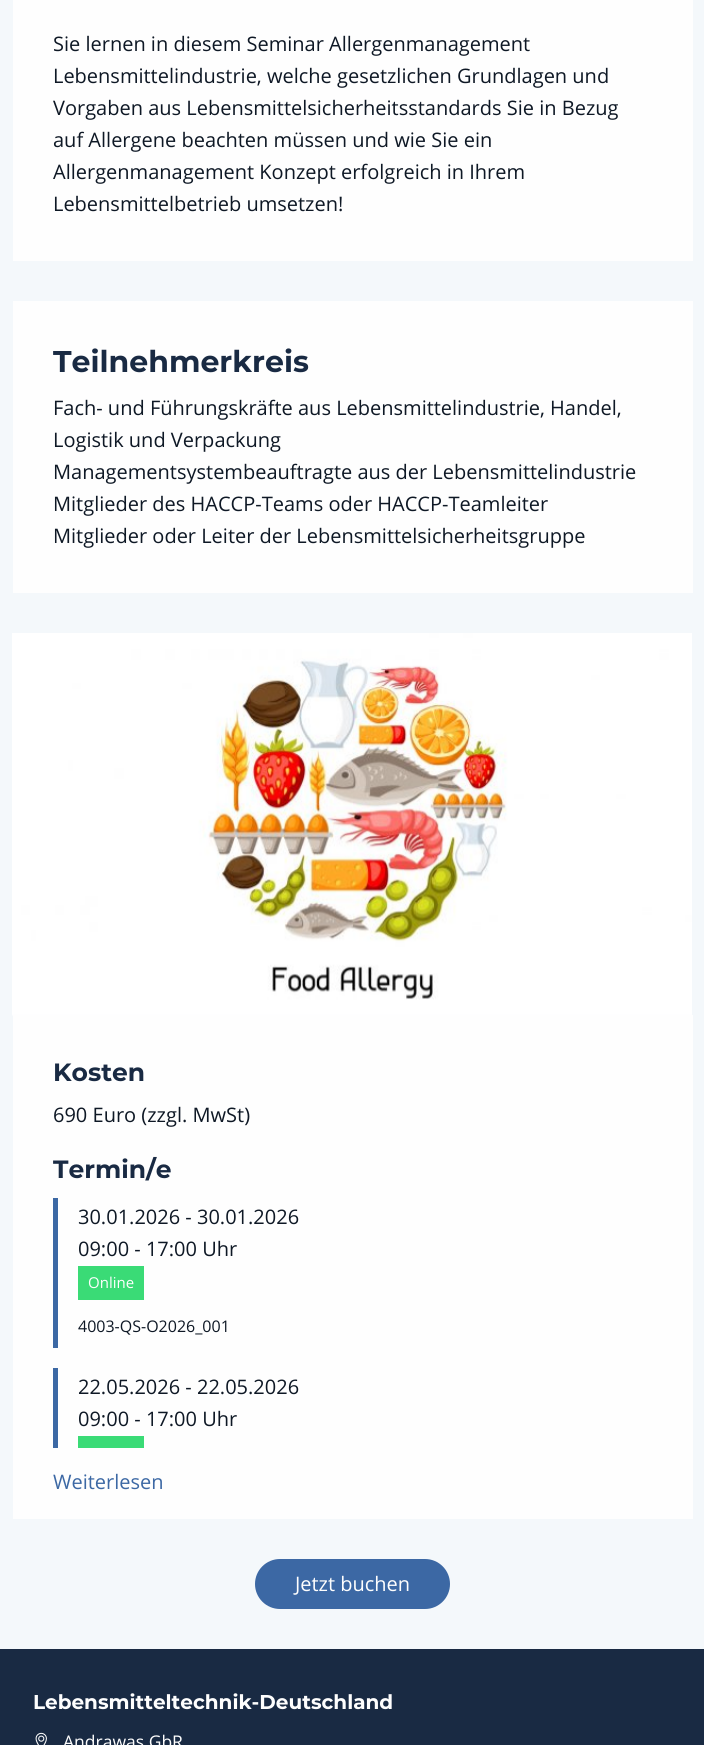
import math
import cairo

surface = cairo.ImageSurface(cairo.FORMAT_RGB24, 704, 1745)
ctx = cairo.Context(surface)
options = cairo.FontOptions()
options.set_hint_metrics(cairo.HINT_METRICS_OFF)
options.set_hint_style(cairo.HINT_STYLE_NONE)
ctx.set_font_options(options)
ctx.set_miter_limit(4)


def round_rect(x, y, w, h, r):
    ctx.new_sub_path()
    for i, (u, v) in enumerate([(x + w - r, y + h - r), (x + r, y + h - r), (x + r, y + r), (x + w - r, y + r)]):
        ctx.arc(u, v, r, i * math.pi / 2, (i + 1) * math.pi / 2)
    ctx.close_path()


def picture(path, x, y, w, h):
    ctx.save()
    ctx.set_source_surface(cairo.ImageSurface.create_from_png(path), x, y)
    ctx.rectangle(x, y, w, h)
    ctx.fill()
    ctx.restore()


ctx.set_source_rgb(0.957, 0.969, 0.984)
ctx.paint()
ctx.set_source_rgb(0.996, 0.996, 0.996)
ctx.rectangle(13, 0, 680, 261)
ctx.fill()
ctx.select_font_face("Open Sans")
ctx.set_font_size(20)
ctx.set_source_rgb(0.055, 0.094, 0.145)
ctx.move_to(53, 51)
ctx.show_text("Sie lernen in diesem Seminar Allergenmanagement")
ctx.move_to(53, 83)
ctx.show_text("Lebensmittelindustrie, welche gesetzlichen Grundlagen und")
ctx.move_to(53, 115)
ctx.show_text("Vorgaben aus Lebensmittelsicherheitsstandards Sie in Bezug")
ctx.move_to(53, 147)
ctx.show_text("auf Allergene beachten müssen und wie Sie ein")
ctx.move_to(53, 179)
ctx.show_text("Allergenmanagement Konzept erfolgreich in Ihrem")
ctx.move_to(53, 211)
ctx.show_text("Lebensmittelbetrieb umsetzen!")
ctx.set_source_rgb(0.996, 0.996, 0.996)
ctx.rectangle(13, 301, 680, 292)
ctx.fill()
ctx.save()
ctx.rectangle(53, 341, 600, 232)
ctx.clip()
ctx.select_font_face("Montserrat", cairo.FONT_SLANT_NORMAL, cairo.FONT_WEIGHT_BOLD)
ctx.set_font_size(30)
ctx.set_source_rgb(0.098, 0.165, 0.263)
ctx.move_to(53, 372)
ctx.show_text("Teilnehmerkreis")
ctx.restore()
ctx.set_source_rgb(0.055, 0.094, 0.145)
ctx.move_to(53, 415)
ctx.show_text("Fach- und Führungskräfte aus Lebensmittelindustrie, Handel,")
ctx.move_to(53, 447)
ctx.show_text("Logistik und Verpackung")
ctx.move_to(53, 479)
ctx.show_text("Managementsystembeauftragte aus der Lebensmittelindustrie")
ctx.move_to(53, 511)
ctx.show_text("Mitglieder des HACCP-Teams oder HACCP-Teamleiter")
ctx.move_to(53, 543)
ctx.show_text("Mitglieder oder Leiter der Lebensmittelsicherheitsgruppe")
ctx.set_source_rgb(0.996, 0.996, 0.996)
ctx.rectangle(13, 1015, 680, 504)
ctx.fill()
picture("img1.png", 12, 633, 680, 383)
ctx.select_font_face("Montserrat", cairo.FONT_SLANT_NORMAL, cairo.FONT_WEIGHT_BOLD)
ctx.set_font_size(25)
ctx.set_source_rgb(0.098, 0.165, 0.263)
ctx.move_to(53, 1081)
ctx.show_text("Kosten")
ctx.select_font_face("Open Sans")
ctx.set_font_size(20)
ctx.set_source_rgb(0.055, 0.094, 0.145)
ctx.move_to(53, 1122)
ctx.show_text("690 Euro (zzgl. MwSt)")
ctx.select_font_face("Montserrat", cairo.FONT_SLANT_NORMAL, cairo.FONT_WEIGHT_BOLD)
ctx.set_font_size(25)
ctx.set_source_rgb(0.098, 0.165, 0.263)
ctx.move_to(53, 1178)
ctx.show_text("Termin/e")
ctx.set_source_rgb(0.235, 0.408, 0.643)
ctx.rectangle(53, 1198, 5, 150)
ctx.fill()
ctx.select_font_face("Open Sans")
ctx.set_font_size(20)
ctx.set_source_rgb(0.055, 0.094, 0.145)
ctx.move_to(78, 1224)
ctx.show_text("30.01.2026 - 30.01.2026")
ctx.move_to(78, 1256)
ctx.show_text("09:00 - 17:00 Uhr")
ctx.set_source_rgb(0.227, 0.859, 0.463)
ctx.rectangle(78, 1266, 66, 34)
ctx.fill()
ctx.set_font_size(15)
ctx.set_source_rgb(0.996, 0.996, 0.996)
ctx.move_to(88, 1288)
ctx.show_text("Online")
ctx.set_font_size(16)
ctx.set_source_rgb(0.055, 0.094, 0.145)
ctx.move_to(78, 1332)
ctx.show_text("4003-QS-O2026_001")
ctx.set_source_rgb(0.235, 0.408, 0.643)
ctx.rectangle(53, 1368, 5, 80)
ctx.fill()
ctx.set_font_size(20)
ctx.set_source_rgb(0.055, 0.094, 0.145)
ctx.move_to(78, 1394)
ctx.show_text("22.05.2026 - 22.05.2026")
ctx.move_to(78, 1426)
ctx.show_text("09:00 - 17:00 Uhr")
ctx.set_source_rgb(0.227, 0.859, 0.463)
ctx.rectangle(78, 1436, 66, 12)
ctx.fill()
ctx.set_source_rgb(0.235, 0.408, 0.643)
ctx.move_to(53, 1489)
ctx.show_text("Weiterlesen")
round_rect(255, 1559, 195, 50, 25)
ctx.fill()
ctx.set_source_rgb(0.996, 0.996, 0.996)
ctx.move_to(295, 1591)
ctx.show_text("Jetzt buchen")
ctx.set_source_rgb(0.098, 0.165, 0.263)
ctx.rectangle(0, 1649, 704, 96)
ctx.fill()
ctx.select_font_face("Montserrat", cairo.FONT_SLANT_NORMAL, cairo.FONT_WEIGHT_BOLD)
ctx.set_source_rgb(0.996, 0.996, 0.996)
ctx.move_to(33, 1709)
ctx.show_text("Lebensmitteltechnik-Deutschland")
picture("img2.png", 35, 1732, 12, 13)
ctx.select_font_face("Open Sans")
ctx.set_font_size(17.5)
ctx.move_to(63, 1748)
ctx.show_text("Andrawas GbR")
surface.write_to_png("page.png")
